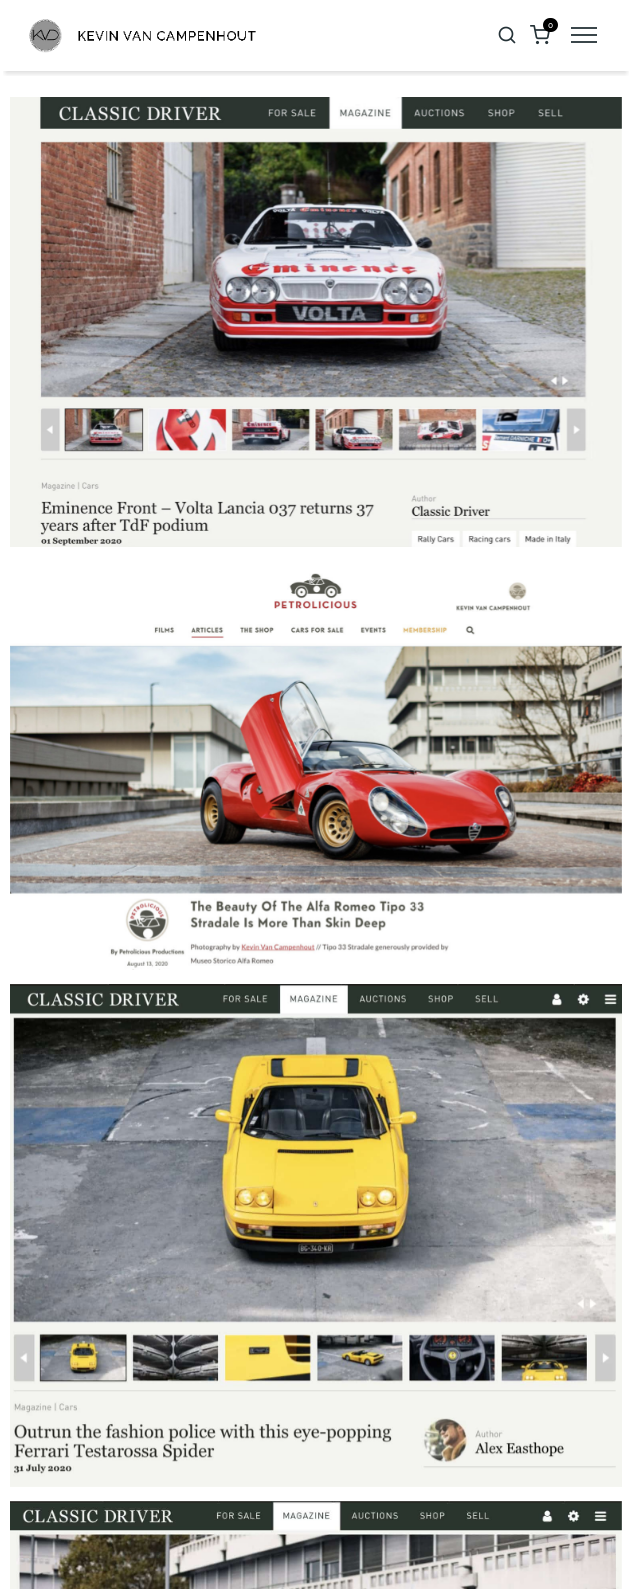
import math
import cairo

surface = cairo.ImageSurface(cairo.FORMAT_RGB24, 632, 1589)
ctx = cairo.Context(surface)
options = cairo.FontOptions()
options.set_hint_metrics(cairo.HINT_METRICS_OFF)
options.set_hint_style(cairo.HINT_STYLE_NONE)
ctx.set_font_options(options)
ctx.set_miter_limit(4)


def round_rect(x, y, w, h, r):
    ctx.new_sub_path()
    for i, (u, v) in enumerate([(x + w - r, y + h - r), (x + r, y + h - r), (x + r, y + r), (x + w - r, y + r)]):
        ctx.arc(u, v, r, i * math.pi / 2, (i + 1) * math.pi / 2)
    ctx.close_path()


def shadow(x, y, w, h, r, blur, alpha):
    ctx.push_group_with_content(cairo.CONTENT_ALPHA)
    ctx.set_operator(cairo.OPERATOR_SOURCE)
    for i in range(15, -16, -2):
        e = blur * i / 6
        if min(w, h) + 2 * e > 0:
            ctx.set_source_rgba(0, 0, 0, alpha * math.erfc((i - 1) / 8.5) / 2)
            round_rect(x - e, y - e, w + 2 * e, h + 2 * e, max(0, min(r + e + blur * .6, min(w, h) / 2 + e)))
            ctx.fill()
    ctx.mask(ctx.pop_group())


def picture(path, x, y, w, h):
    ctx.save()
    ctx.set_source_surface(cairo.ImageSurface.create_from_png(path), x, y)
    ctx.rectangle(x, y, w, h)
    ctx.fill()
    ctx.restore()


ctx.set_source_rgb(1, 1, 1)
ctx.paint()
ctx.save()
ctx.rectangle(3, 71, 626, 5)
ctx.clip()
ctx.set_source_rgb(0, 0, 0)
shadow(6, 14, 620, 59, 0, 3, 0.16)
ctx.restore()
picture("img1.png", 29, 19, 227, 34)
ctx.arc(506, 34, 6.5, 0, 2 * math.pi)
ctx.set_source_rgb(0.145, 0.196, 0.216)
ctx.set_line_width(1.7)
ctx.stroke()
ctx.new_path()
ctx.move_to(514.5, 42.5)
ctx.line_to(511, 39)
ctx.set_line_cap(cairo.LINE_CAP_ROUND)
ctx.set_line_join(cairo.LINE_JOIN_ROUND)
ctx.stroke()
picture("img2.png", 530, 25, 20, 20)
ctx.set_source_rgb(0, 0, 0)
round_rect(543, 18, 15, 14, 7)
ctx.fill()
ctx.select_font_face("Raleway", cairo.FONT_SLANT_NORMAL, cairo.FONT_WEIGHT_BOLD)
ctx.set_font_size(8)
ctx.set_source_rgb(1, 1, 1)
ctx.move_to(548, 28)
ctx.show_text("0")
ctx.set_source_rgb(0.231, 0.278, 0.294)
ctx.rectangle(571, 27, 26, 2)
ctx.fill()
ctx.rectangle(571, 41, 26, 2)
ctx.fill()
ctx.rectangle(571, 34, 26, 2)
ctx.fill()
picture("img3.png", 10, 97, 612, 450)
picture("img4.png", 10, 573, 612, 397)
picture("img5.png", 10, 984, 612, 503)
picture("img6.png", 10, 1501, 612, 88)
surface.write_to_png("page.png")
